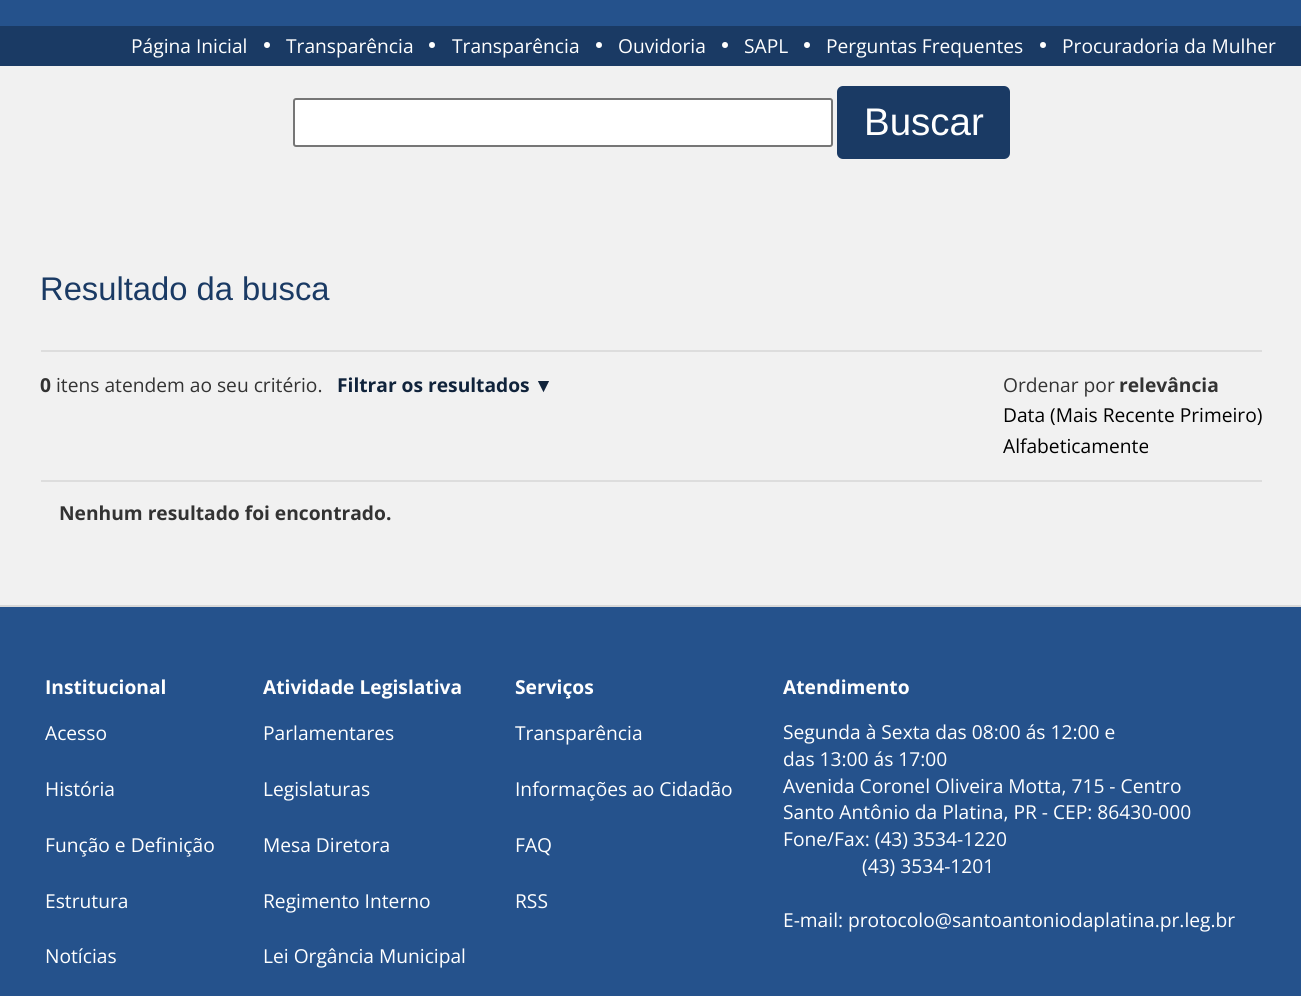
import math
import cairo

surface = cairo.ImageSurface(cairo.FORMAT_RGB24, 1301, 996)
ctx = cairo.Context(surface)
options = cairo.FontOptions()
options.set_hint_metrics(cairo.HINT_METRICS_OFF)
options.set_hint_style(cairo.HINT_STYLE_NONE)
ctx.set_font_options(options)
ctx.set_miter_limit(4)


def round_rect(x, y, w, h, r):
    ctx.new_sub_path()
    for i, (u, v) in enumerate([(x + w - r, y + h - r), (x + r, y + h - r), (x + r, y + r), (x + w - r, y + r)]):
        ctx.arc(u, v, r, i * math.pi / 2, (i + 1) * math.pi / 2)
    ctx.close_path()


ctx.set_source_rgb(0.945, 0.945, 0.945)
ctx.paint()
ctx.set_source_rgb(0.145, 0.322, 0.549)
ctx.rectangle(0, 0, 1301, 26)
ctx.fill()
ctx.set_source_rgb(0.102, 0.227, 0.392)
ctx.rectangle(0, 26, 1301, 40)
ctx.fill()
ctx.select_font_face("Open Sans")
ctx.set_font_size(19.2)
ctx.set_source_rgb(1, 1, 1)
ctx.move_to(131, 53)
ctx.show_text("Página Inicial")
ctx.new_path()
ctx.arc(267, 45, 3, 0, 2 * math.pi)
ctx.fill()
ctx.move_to(286, 53)
ctx.show_text("Transparência")
ctx.new_path()
ctx.arc(432, 45, 3, 0, 2 * math.pi)
ctx.fill()
ctx.move_to(452, 53)
ctx.show_text("Transparência")
ctx.new_path()
ctx.arc(599, 45, 3, 0, 2 * math.pi)
ctx.fill()
ctx.move_to(618, 53)
ctx.show_text("Ouvidoria")
ctx.new_path()
ctx.arc(725, 45, 3, 0, 2 * math.pi)
ctx.fill()
ctx.move_to(744, 53)
ctx.show_text("SAPL")
ctx.new_path()
ctx.arc(807, 45, 3, 0, 2 * math.pi)
ctx.fill()
ctx.move_to(826, 53)
ctx.show_text("Perguntas Frequentes")
ctx.new_path()
ctx.arc(1043, 45, 3, 0, 2 * math.pi)
ctx.fill()
ctx.move_to(1062, 53)
ctx.show_text("Procuradoria da Mulher")
round_rect(294, 99, 538, 47, 2)
ctx.fill_preserve()
ctx.set_source_rgb(0.463, 0.463, 0.463)
ctx.stroke()
ctx.set_source_rgb(0.102, 0.227, 0.392)
round_rect(837, 86, 173, 73, 6)
ctx.fill()
ctx.select_font_face("Liberation Sans")
ctx.set_font_size(38.5)
ctx.set_source_rgb(1, 1, 1)
ctx.move_to(864, 135)
ctx.show_text("Buscar")
ctx.set_font_size(32.75)
ctx.set_source_rgb(0.102, 0.227, 0.392)
ctx.move_to(40, 300)
ctx.show_text("Resultado da busca")
ctx.set_source_rgb(0.867, 0.867, 0.867)
ctx.rectangle(41, 350, 1221, 2)
ctx.fill()
ctx.rectangle(41, 480, 1221, 2)
ctx.fill()
ctx.select_font_face("Open Sans", cairo.FONT_SLANT_NORMAL, cairo.FONT_WEIGHT_BOLD)
ctx.set_font_size(19.2)
ctx.set_source_rgb(0.2, 0.2, 0.2)
ctx.move_to(40, 392)
ctx.show_text("0")
ctx.select_font_face("Open Sans")
ctx.move_to(56, 392)
ctx.show_text("itens atendem ao seu critério.")
ctx.select_font_face("Open Sans", cairo.FONT_SLANT_NORMAL, cairo.FONT_WEIGHT_BOLD)
ctx.set_source_rgb(0.063, 0.137, 0.231)
ctx.move_to(337, 392)
ctx.show_text("Filtrar os resultados")
ctx.select_font_face("Liberation Sans", cairo.FONT_SLANT_NORMAL, cairo.FONT_WEIGHT_BOLD)
ctx.move_to(534, 392)
ctx.show_text("▼")
ctx.select_font_face("Open Sans", cairo.FONT_SLANT_NORMAL, cairo.FONT_WEIGHT_BOLD)
ctx.set_source_rgb(0.2, 0.2, 0.2)
ctx.move_to(1119, 392)
ctx.show_text("relevância")
ctx.select_font_face("Open Sans")
ctx.set_source_rgb(0, 0, 0)
ctx.move_to(1003, 422)
ctx.show_text("Data (Mais Recente Primeiro)")
ctx.move_to(1003, 453)
ctx.show_text("Alfabeticamente")
ctx.set_source_rgb(0.2, 0.2, 0.2)
ctx.move_to(1003, 392)
ctx.show_text("Ordenar por")
ctx.select_font_face("Open Sans", cairo.FONT_SLANT_NORMAL, cairo.FONT_WEIGHT_BOLD)
ctx.move_to(59, 520)
ctx.show_text("Nenhum resultado foi encontrado.")
ctx.set_source_rgb(0.145, 0.322, 0.549)
ctx.rectangle(0, 607, 1301, 389)
ctx.fill()
ctx.set_source_rgb(0.847, 0.847, 0.847)
ctx.rectangle(0, 605, 1301, 2)
ctx.fill()
ctx.set_source_rgb(1, 1, 1)
ctx.move_to(45, 694)
ctx.show_text("Institucional")
ctx.move_to(263, 694)
ctx.show_text("Atividade Legislativa")
ctx.move_to(515, 694)
ctx.show_text("Serviços")
ctx.move_to(783, 694)
ctx.show_text("Atendimento")
ctx.select_font_face("Open Sans")
ctx.move_to(45, 740)
ctx.show_text("Acesso")
ctx.move_to(45, 796)
ctx.show_text("História")
ctx.move_to(45, 852)
ctx.show_text("Função e Definição")
ctx.move_to(45, 908)
ctx.show_text("Estrutura")
ctx.move_to(45, 963)
ctx.show_text("Notícias")
ctx.move_to(263, 740)
ctx.show_text("Parlamentares")
ctx.move_to(263, 796)
ctx.show_text("Legislaturas")
ctx.move_to(263, 852)
ctx.show_text("Mesa Diretora")
ctx.move_to(263, 908)
ctx.show_text("Regimento Interno")
ctx.move_to(263, 963)
ctx.show_text("Lei Orgância Municipal")
ctx.move_to(515, 740)
ctx.show_text("Transparência")
ctx.move_to(515, 796)
ctx.show_text("Informações ao Cidadão")
ctx.move_to(515, 852)
ctx.show_text("FAQ")
ctx.move_to(515, 908)
ctx.show_text("RSS")
ctx.move_to(783, 739)
ctx.show_text("Segunda à Sexta das 08:00 ás 12:00 e")
ctx.move_to(783, 766)
ctx.show_text("das 13:00 ás 17:00")
ctx.move_to(783, 793)
ctx.show_text("Avenida Coronel Oliveira Motta, 715 - Centro")
ctx.move_to(783, 819)
ctx.show_text("Santo Antônio da Platina, PR - CEP: 86430-000")
ctx.move_to(783, 846)
ctx.show_text("Fone/Fax: (43) 3534-1220")
ctx.move_to(862, 873)
ctx.show_text("(43) 3534-1201")
ctx.move_to(783, 927)
ctx.show_text("E-mail: protocolo@santoantoniodaplatina.pr.leg.br")
surface.write_to_png("page.png")
